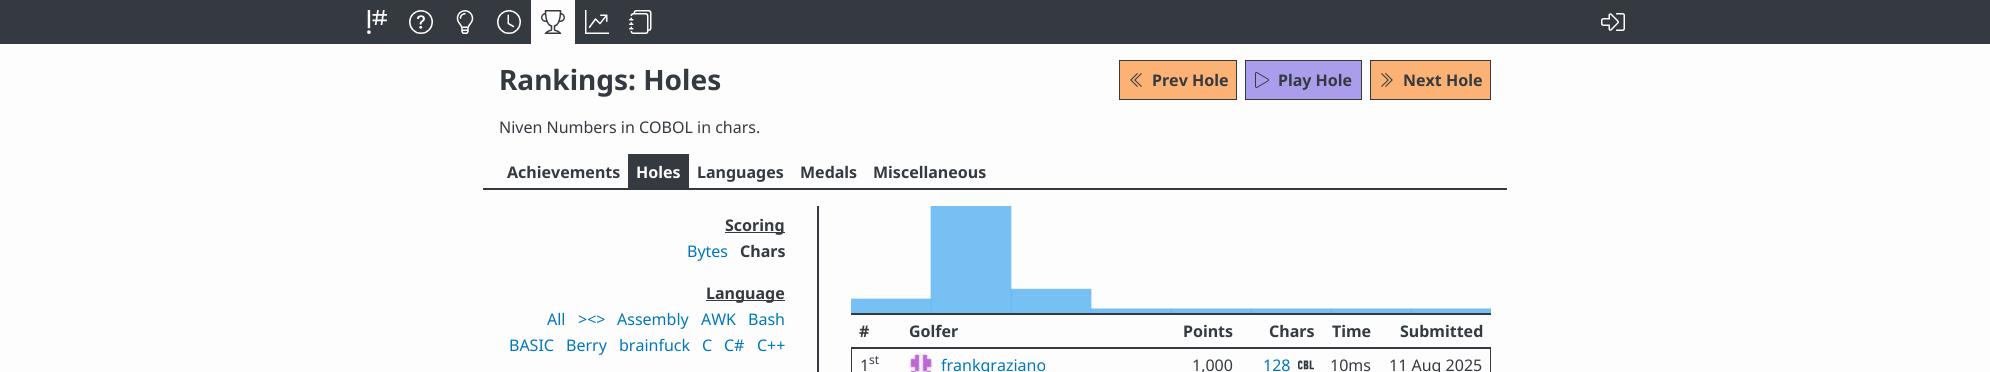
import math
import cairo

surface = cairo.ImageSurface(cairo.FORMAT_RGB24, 1990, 372)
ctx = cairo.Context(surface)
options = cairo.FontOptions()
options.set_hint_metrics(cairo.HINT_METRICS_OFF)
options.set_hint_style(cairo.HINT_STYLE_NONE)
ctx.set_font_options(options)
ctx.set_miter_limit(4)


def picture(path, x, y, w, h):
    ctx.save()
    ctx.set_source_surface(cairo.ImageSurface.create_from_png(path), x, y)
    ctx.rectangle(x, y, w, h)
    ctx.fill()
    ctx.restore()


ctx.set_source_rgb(0.992, 0.992, 0.992)
ctx.paint()
ctx.set_source_rgb(0.204, 0.227, 0.251)
ctx.rectangle(0, 0, 1990, 44)
ctx.fill()
picture("img1.png", 367, 10, 20, 24)
picture("img2.png", 409, 10, 24, 24)
picture("img3.png", 456, 10, 18, 24)
picture("img4.png", 497, 10, 24, 24)
ctx.set_source_rgb(0.992, 0.992, 0.992)
ctx.rectangle(531, 0, 44, 44)
ctx.fill()
picture("img5.png", 541, 10, 24, 24)
picture("img6.png", 585, 10, 24, 24)
picture("img7.png", 629, 10, 23, 24)
picture("img8.png", 1601, 13, 24, 18)
ctx.select_font_face("Noto Sans", cairo.FONT_SLANT_NORMAL, cairo.FONT_WEIGHT_BOLD)
ctx.set_font_size(28)
ctx.set_source_rgb(0.204, 0.227, 0.251)
ctx.move_to(499, 90)
ctx.show_text("Rankings: Holes")
ctx.set_source_rgb(0.992, 0.698, 0.459)
ctx.rectangle(1119.5, 60.5, 117, 39)
ctx.fill_preserve()
ctx.set_source_rgb(0.204, 0.227, 0.251)
ctx.set_line_width(1)
ctx.stroke()
picture("img9.png", 1130, 73, 12, 14)
ctx.set_font_size(16)
ctx.move_to(1152, 86)
ctx.show_text("Prev Hole")
ctx.set_source_rgb(0.667, 0.616, 0.925)
ctx.rectangle(1245.5, 60.5, 116, 39)
ctx.fill_preserve()
ctx.set_source_rgb(0.204, 0.227, 0.251)
ctx.stroke()
picture("img10.png", 1255, 72, 14, 16)
ctx.move_to(1278, 86)
ctx.show_text("Play Hole")
ctx.set_source_rgb(0.992, 0.698, 0.459)
ctx.rectangle(1370.5, 60.5, 120, 39)
ctx.fill_preserve()
ctx.set_source_rgb(0.204, 0.227, 0.251)
ctx.stroke()
picture("img11.png", 1381, 73, 12, 14)
ctx.move_to(1403, 86)
ctx.show_text("Next Hole")
ctx.select_font_face("Noto Sans")
ctx.move_to(499, 133)
ctx.show_text("Niven Numbers in COBOL in chars.")
ctx.rectangle(483, 188, 1024, 2)
ctx.fill()
ctx.select_font_face("Noto Sans", cairo.FONT_SLANT_NORMAL, cairo.FONT_WEIGHT_BOLD)
ctx.move_to(507, 178)
ctx.show_text("Achievements")
ctx.rectangle(628, 154, 61, 34)
ctx.fill()
ctx.set_source_rgb(0.992, 0.992, 0.992)
ctx.move_to(636, 178)
ctx.show_text("Holes")
ctx.set_source_rgb(0.204, 0.227, 0.251)
ctx.move_to(697, 178)
ctx.show_text("Languages")
ctx.move_to(800, 178)
ctx.show_text("Medals")
ctx.move_to(873, 178)
ctx.show_text("Miscellaneous")
ctx.rectangle(817, 206, 2, 166)
ctx.fill()
ctx.rectangle(725, 232, 60, 1)
ctx.fill()
ctx.move_to(725, 231)
ctx.show_text("Scoring")
ctx.select_font_face("Noto Sans")
ctx.set_source_rgb(0, 0.467, 0.733)
ctx.move_to(687, 257)
ctx.show_text("Bytes")
ctx.select_font_face("Noto Sans", cairo.FONT_SLANT_NORMAL, cairo.FONT_WEIGHT_BOLD)
ctx.set_source_rgb(0.204, 0.227, 0.251)
ctx.move_to(740, 257)
ctx.show_text("Chars")
ctx.rectangle(706, 300, 79, 1)
ctx.fill()
ctx.move_to(706, 299)
ctx.show_text("Language")
ctx.select_font_face("Noto Sans")
ctx.set_source_rgb(0, 0.467, 0.733)
ctx.move_to(547, 325)
ctx.show_text("All")
ctx.move_to(578, 325)
ctx.show_text("><>")
ctx.move_to(617, 325)
ctx.show_text("Assembly")
ctx.move_to(701, 325)
ctx.show_text("AWK")
ctx.move_to(748, 325)
ctx.show_text("Bash")
ctx.move_to(509, 351)
ctx.show_text("BASIC")
ctx.move_to(566, 351)
ctx.show_text("Berry")
ctx.move_to(619, 351)
ctx.show_text("brainfuck")
ctx.move_to(702, 351)
ctx.show_text("C")
ctx.move_to(724, 351)
ctx.show_text("C#")
ctx.move_to(757, 351)
ctx.show_text("C++")
ctx.set_source_rgb(0.204, 0.227, 0.251)
ctx.rectangle(851, 313, 640, 2)
ctx.fill()
picture("img12.png", 851, 206, 640, 107)
ctx.rectangle(851, 347, 640, 2)
ctx.fill()
ctx.select_font_face("Noto Sans", cairo.FONT_SLANT_NORMAL, cairo.FONT_WEIGHT_BOLD)
ctx.move_to(859, 337)
ctx.show_text("#")
ctx.move_to(909, 337)
ctx.show_text("Golfer")
ctx.move_to(1183, 337)
ctx.show_text("Points")
ctx.move_to(1269, 337)
ctx.show_text("Chars")
ctx.move_to(1332, 337)
ctx.show_text("Time")
ctx.move_to(1400, 337)
ctx.show_text("Submitted")
ctx.rectangle(851, 349, 1, 23)
ctx.fill()
ctx.select_font_face("Noto Sans")
ctx.move_to(860, 371)
ctx.show_text("1")
ctx.set_font_size(12)
ctx.move_to(869, 364)
ctx.show_text("st")
picture("img13.png", 909, 353, 24, 19)
ctx.set_font_size(16)
ctx.set_source_rgb(0, 0.467, 0.733)
ctx.move_to(941, 371)
ctx.show_text("frankgraziano")
ctx.set_source_rgb(0.204, 0.227, 0.251)
ctx.move_to(1192, 371)
ctx.show_text("1,000")
ctx.set_source_rgb(0, 0.467, 0.733)
ctx.move_to(1263, 371)
ctx.show_text("128")
picture("img14.png", 1298, 360, 16, 10)
ctx.set_source_rgb(0.204, 0.227, 0.251)
ctx.move_to(1330, 371)
ctx.show_text("10ms")
ctx.rectangle(1490, 349, 1, 23)
ctx.fill()
ctx.move_to(1389, 371)
ctx.show_text("11 Aug 2025")
surface.write_to_png("page.png")
